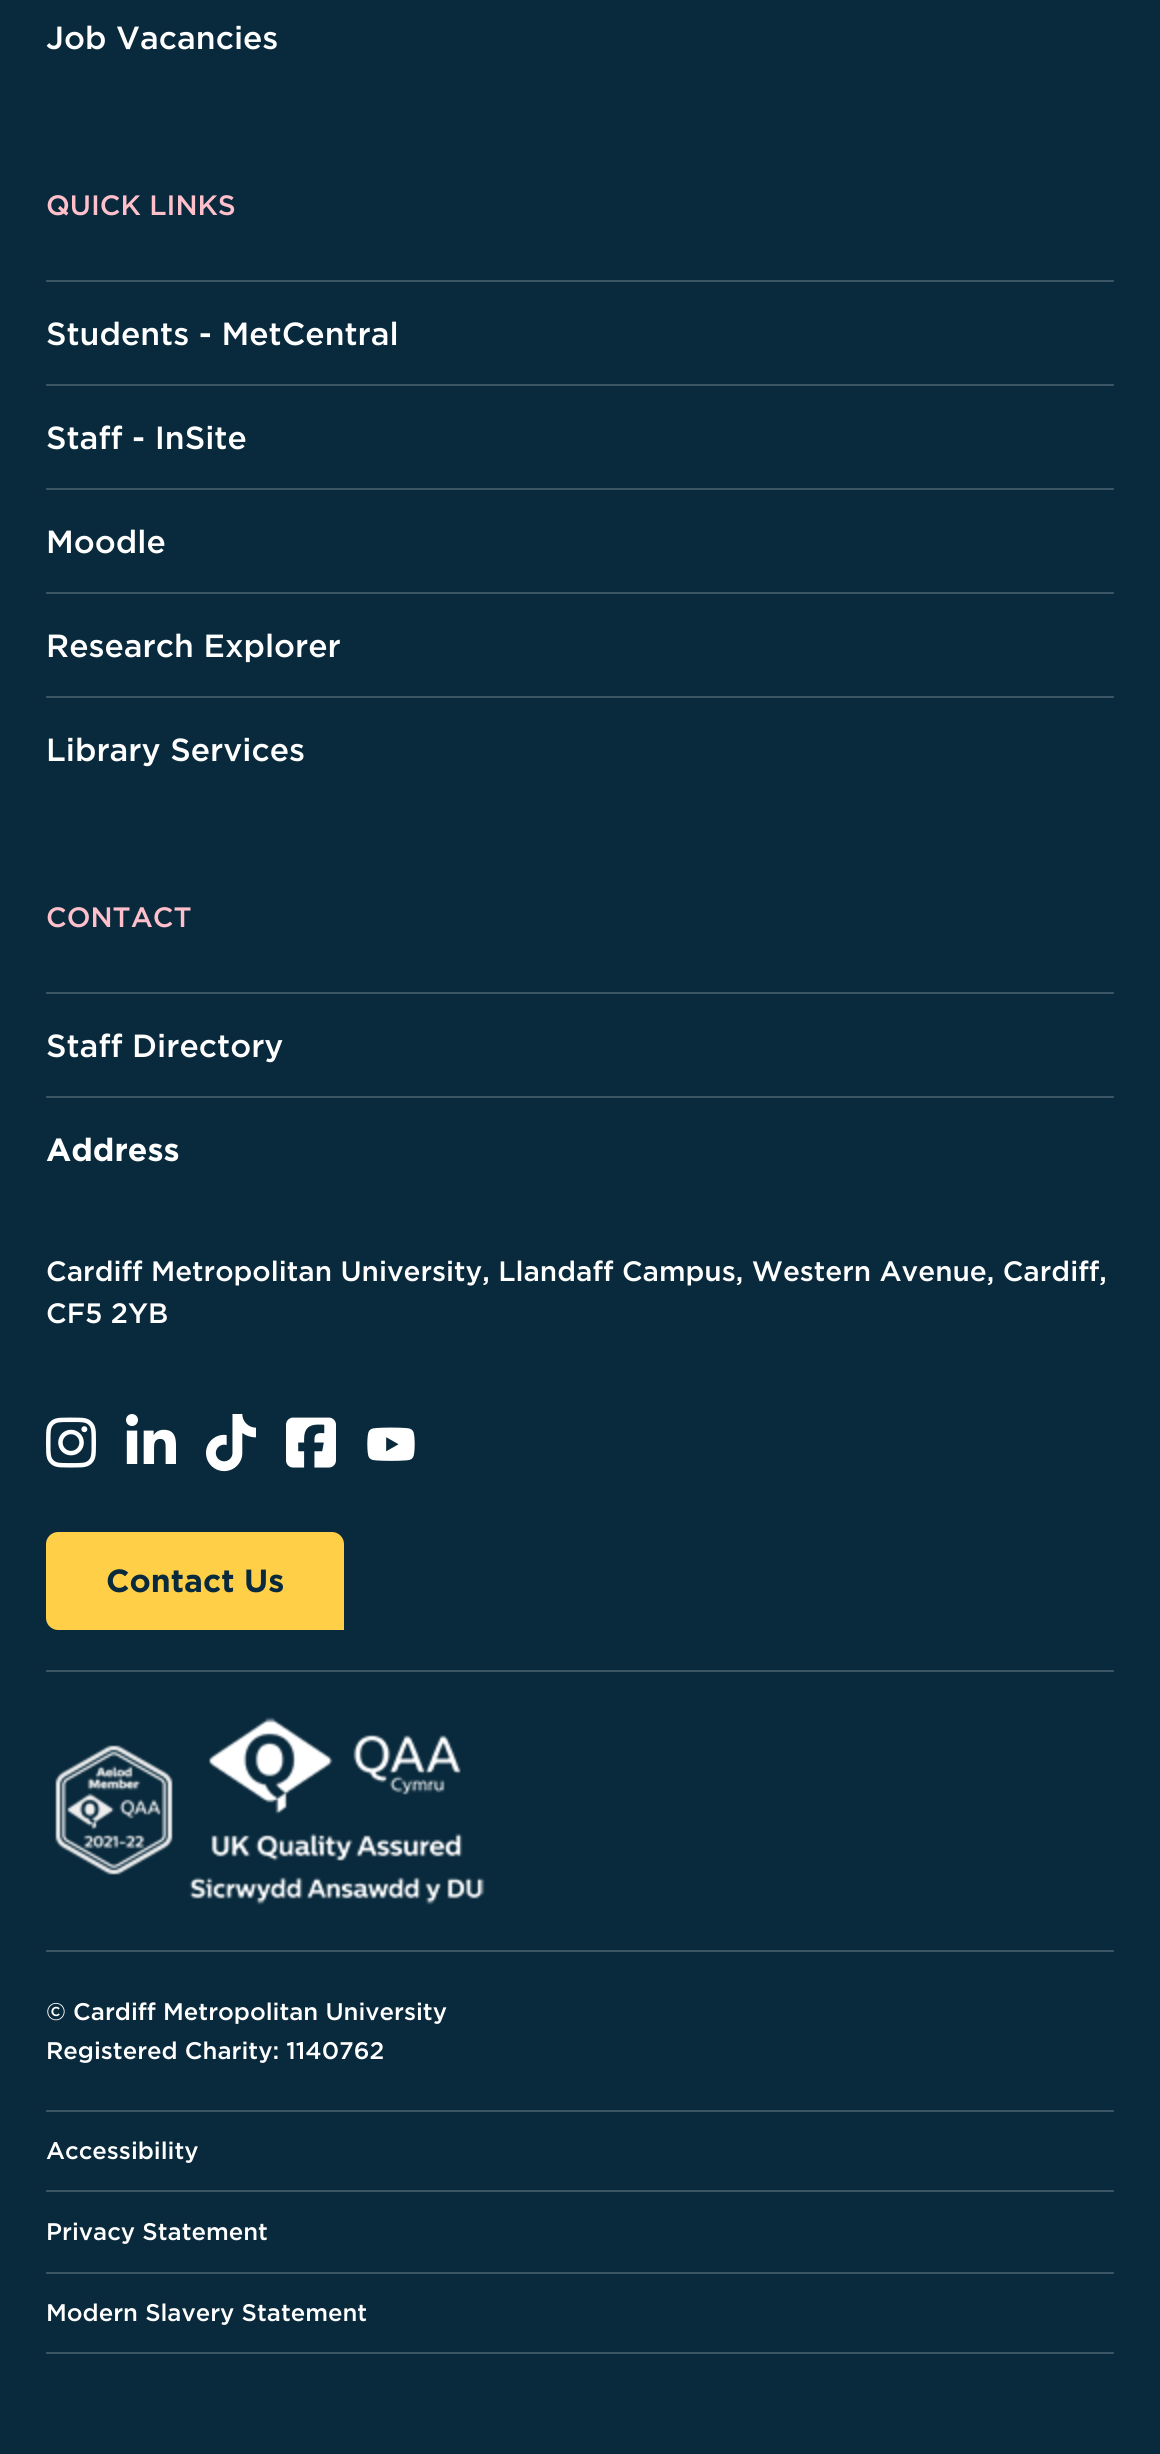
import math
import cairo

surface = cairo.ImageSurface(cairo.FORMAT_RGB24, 1160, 2454)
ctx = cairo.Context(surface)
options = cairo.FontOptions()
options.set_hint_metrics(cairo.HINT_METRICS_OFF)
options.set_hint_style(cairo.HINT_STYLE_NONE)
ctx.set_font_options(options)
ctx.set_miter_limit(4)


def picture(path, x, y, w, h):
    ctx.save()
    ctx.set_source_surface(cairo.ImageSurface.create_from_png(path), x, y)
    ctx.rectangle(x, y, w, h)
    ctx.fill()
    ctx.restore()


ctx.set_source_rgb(0.039, 0.165, 0.239)
ctx.paint()
ctx.select_font_face("Gotham Medium")
ctx.set_font_size(32)
ctx.set_source_rgb(1, 1, 1)
ctx.move_to(46, 49)
ctx.show_text("Job Vacancies")
ctx.set_font_size(28)
ctx.set_source_rgb(1, 0.753, 0.796)
ctx.move_to(46, 215)
ctx.show_text("QUICK LINKS")
ctx.set_source_rgb(0.231, 0.333, 0.392)
ctx.rectangle(46, 280, 1068, 2)
ctx.fill()
ctx.set_font_size(32)
ctx.set_source_rgb(1, 1, 1)
ctx.move_to(46, 345)
ctx.show_text("Students - MetCentral")
ctx.set_source_rgb(0.231, 0.333, 0.392)
ctx.rectangle(46, 384, 1068, 2)
ctx.fill()
ctx.set_source_rgb(1, 1, 1)
ctx.move_to(46, 449)
ctx.show_text("Staff - InSite")
ctx.set_source_rgb(0.231, 0.333, 0.392)
ctx.rectangle(46, 488, 1068, 2)
ctx.fill()
ctx.set_source_rgb(1, 1, 1)
ctx.move_to(46, 553)
ctx.show_text("Moodle")
ctx.set_source_rgb(0.231, 0.333, 0.392)
ctx.rectangle(46, 592, 1068, 2)
ctx.fill()
ctx.set_source_rgb(1, 1, 1)
ctx.move_to(46, 657)
ctx.show_text("Research Explorer")
ctx.set_source_rgb(0.231, 0.333, 0.392)
ctx.rectangle(46, 696, 1068, 2)
ctx.fill()
ctx.set_source_rgb(1, 1, 1)
ctx.move_to(46, 761)
ctx.show_text("Library Services")
ctx.set_font_size(28)
ctx.set_source_rgb(1, 0.753, 0.796)
ctx.move_to(46, 927)
ctx.show_text("CONTACT")
ctx.set_source_rgb(0.231, 0.333, 0.392)
ctx.rectangle(46, 992, 1068, 2)
ctx.fill()
ctx.set_font_size(32)
ctx.set_source_rgb(1, 1, 1)
ctx.move_to(46, 1057)
ctx.show_text("Staff Directory")
ctx.set_source_rgb(0.231, 0.333, 0.392)
ctx.rectangle(46, 1096, 1068, 2)
ctx.fill()
ctx.select_font_face("Gotham", cairo.FONT_SLANT_NORMAL, cairo.FONT_WEIGHT_BOLD)
ctx.set_source_rgb(1, 1, 1)
ctx.move_to(46, 1161)
ctx.show_text("Address")
ctx.select_font_face("Gotham Medium")
ctx.set_font_size(28)
ctx.move_to(46, 1281)
ctx.show_text("Cardiff Metropolitan University, Llandaff Campus, Western Avenue, Cardiff,")
ctx.move_to(46, 1323)
ctx.show_text("CF5 2YB")
picture("img1.png", 46, 1417, 50, 51)
picture("img2.png", 126, 1414, 50, 50)
picture("img3.png", 206, 1414, 50, 58)
picture("img4.png", 286, 1417, 50, 51)
picture("img5.png", 367, 1427, 48, 34)
ctx.set_source_rgb(1, 0.812, 0.282)
ctx.new_path()
ctx.move_to(58, 1532)
ctx.line_to(332, 1532)
ctx.curve_to(338.5, 1532, 344, 1537.5, 344, 1544)
ctx.line_to(344, 1630)
ctx.line_to(58, 1630)
ctx.curve_to(51.5, 1630, 46, 1624.5, 46, 1618)
ctx.line_to(46, 1544)
ctx.curve_to(46, 1537.5, 51.5, 1532, 58, 1532)
ctx.close_path()
ctx.fill()
ctx.select_font_face("Gotham", cairo.FONT_SLANT_NORMAL, cairo.FONT_WEIGHT_BOLD)
ctx.set_font_size(32)
ctx.set_source_rgb(0.039, 0.165, 0.239)
ctx.move_to(106, 1592)
ctx.show_text("Contact Us")
ctx.set_source_rgb(0.231, 0.333, 0.392)
ctx.rectangle(46, 1670, 1068, 2)
ctx.fill()
ctx.rectangle(46, 1950, 1068, 2)
ctx.fill()
picture("img6.png", 55, 1717, 430, 188)
ctx.select_font_face("Gotham Medium")
ctx.set_font_size(24)
ctx.set_source_rgb(1, 1, 1)
ctx.move_to(46, 2020)
ctx.show_text("© Cardiff Metropolitan University")
ctx.move_to(46, 2059)
ctx.show_text("Registered Charity: 1140762")
ctx.set_source_rgb(0.231, 0.333, 0.392)
ctx.rectangle(46, 2110, 1068, 2)
ctx.fill()
ctx.rectangle(46, 2190, 1068, 2)
ctx.fill()
ctx.set_source_rgb(1, 1, 1)
ctx.move_to(46, 2159)
ctx.show_text("Accessibility")
ctx.set_source_rgb(0.231, 0.333, 0.392)
ctx.rectangle(46, 2272, 1068, 2)
ctx.fill()
ctx.set_source_rgb(1, 1, 1)
ctx.move_to(46, 2240)
ctx.show_text("Privacy Statement")
ctx.set_source_rgb(0.231, 0.333, 0.392)
ctx.rectangle(46, 2352, 1068, 2)
ctx.fill()
ctx.set_source_rgb(1, 1, 1)
ctx.move_to(46, 2321)
ctx.show_text("Modern Slavery Statement")
surface.write_to_png("page.png")
